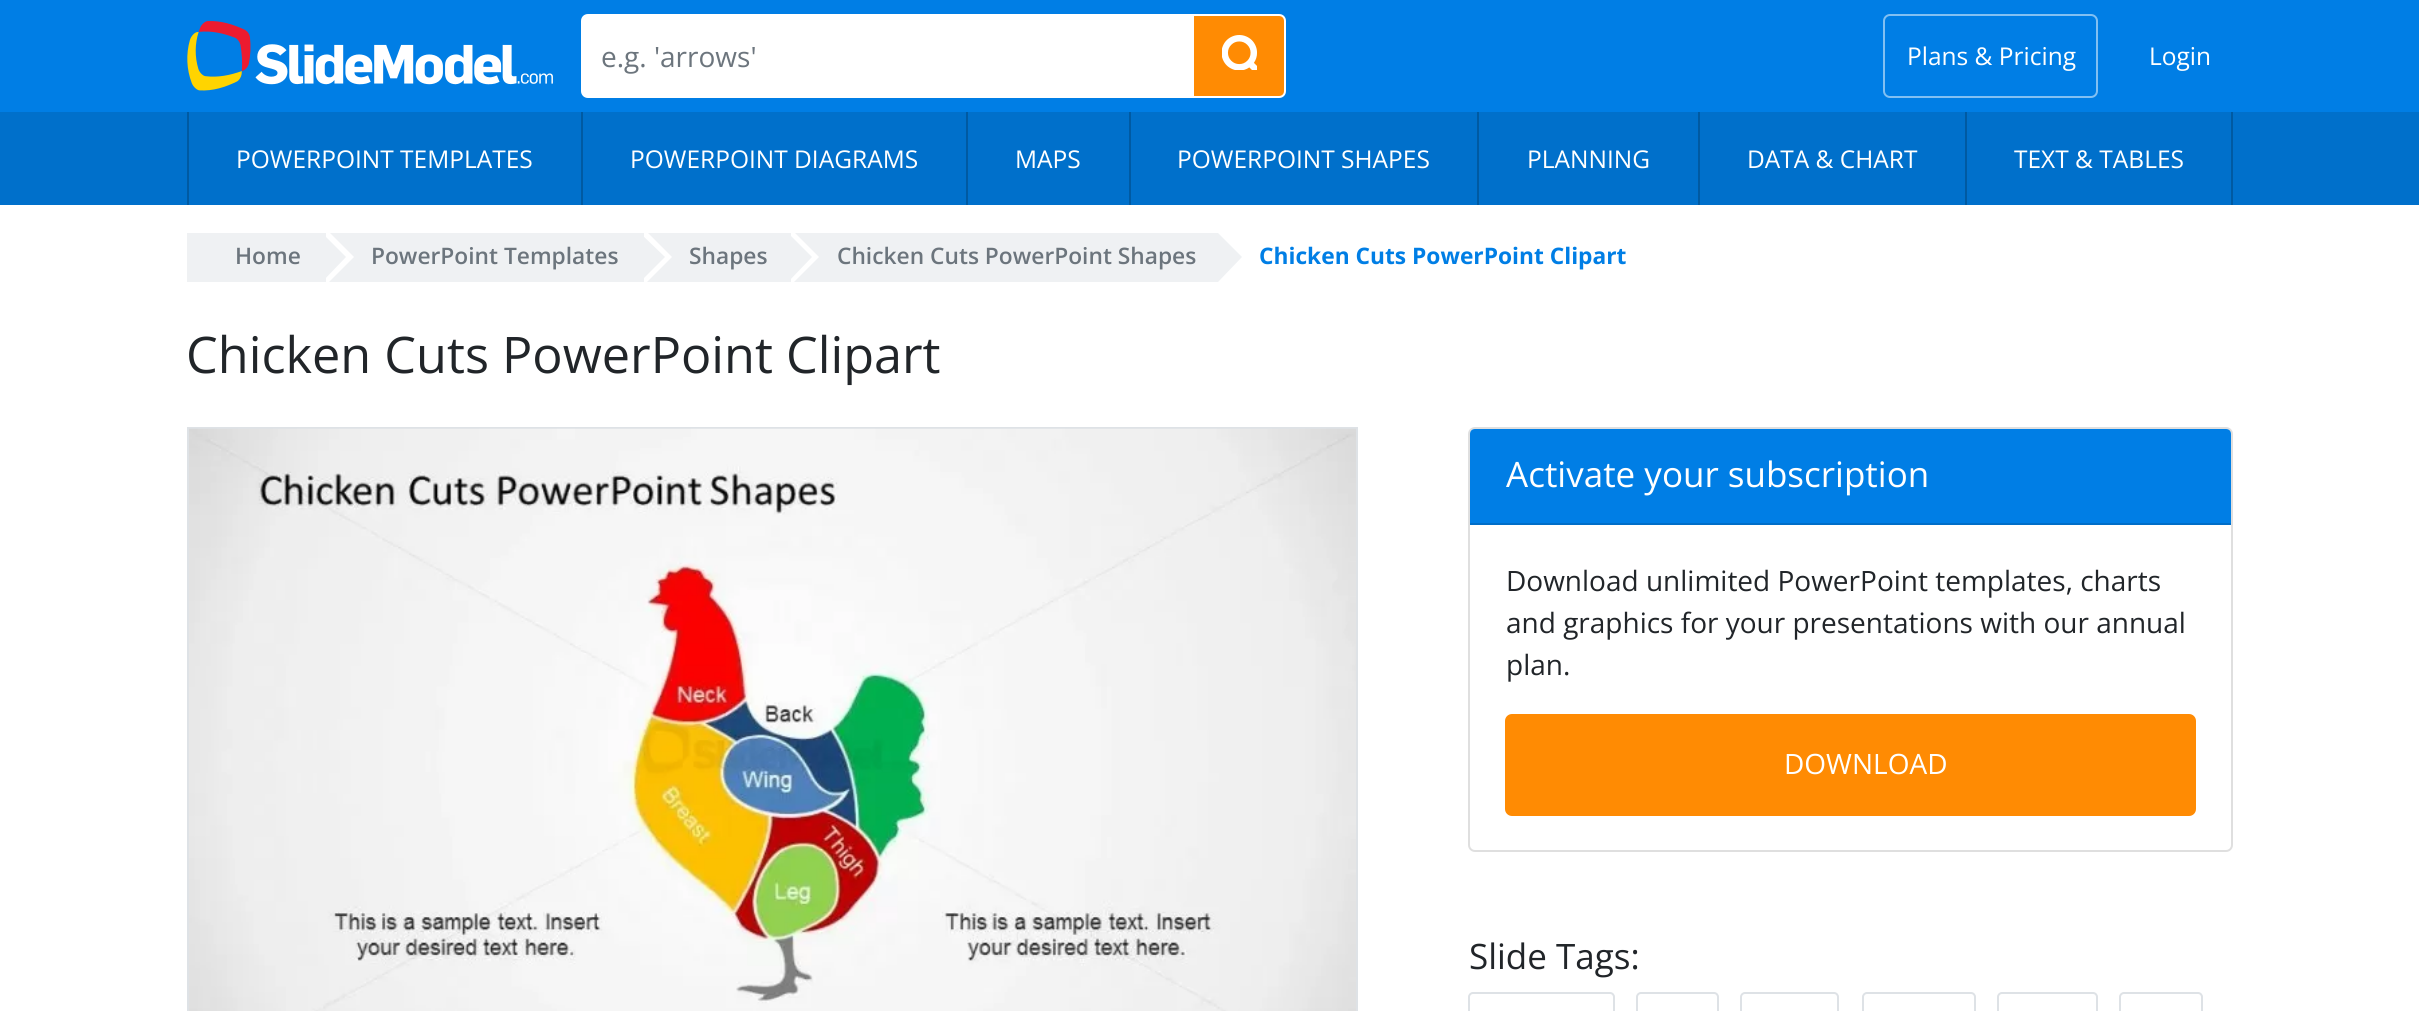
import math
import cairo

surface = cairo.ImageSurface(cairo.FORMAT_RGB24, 2419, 1011)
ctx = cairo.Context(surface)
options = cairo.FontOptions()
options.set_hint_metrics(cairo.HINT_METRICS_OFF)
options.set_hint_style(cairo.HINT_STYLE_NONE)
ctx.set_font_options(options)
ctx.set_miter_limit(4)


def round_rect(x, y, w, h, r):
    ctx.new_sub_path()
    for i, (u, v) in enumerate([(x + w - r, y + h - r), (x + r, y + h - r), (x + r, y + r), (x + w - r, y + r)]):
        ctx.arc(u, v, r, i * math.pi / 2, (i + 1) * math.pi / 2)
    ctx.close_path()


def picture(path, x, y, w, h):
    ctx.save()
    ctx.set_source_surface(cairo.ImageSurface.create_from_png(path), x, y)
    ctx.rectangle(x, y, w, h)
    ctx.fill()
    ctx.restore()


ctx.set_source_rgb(1, 1, 1)
ctx.paint()
ctx.set_source_rgb(0, 0.494, 0.898)
ctx.rectangle(0, 0, 2419, 112)
ctx.fill()
picture("img1.png", 187, 21, 366, 70)
ctx.set_source_rgb(1, 1, 1)
ctx.new_path()
ctx.move_to(588, 14)
ctx.line_to(1194, 14)
ctx.line_to(1194, 98)
ctx.line_to(588, 98)
ctx.curve_to(584, 98, 581, 95, 581, 91)
ctx.line_to(581, 21)
ctx.curve_to(581, 17, 584, 14, 588, 14)
ctx.close_path()
ctx.fill()
ctx.select_font_face("Open Sans")
ctx.set_font_size(28)
ctx.set_source_rgb(0.424, 0.459, 0.49)
ctx.move_to(601, 67)
ctx.show_text("e.g. 'arrows'")
ctx.set_source_rgb(1, 0.545, 0.012)
ctx.new_path()
ctx.move_to(1193, 15)
ctx.line_to(1279, 15)
ctx.curve_to(1282.5, 15, 1285, 17.5, 1285, 21)
ctx.line_to(1285, 91)
ctx.curve_to(1285, 94.5, 1282.5, 97, 1279, 97)
ctx.line_to(1193, 97)
ctx.close_path()
ctx.fill_preserve()
ctx.set_source_rgb(1, 1, 1)
ctx.stroke()
picture("img2.png", 1222, 35, 35, 35)
round_rect(1884, 15, 213, 82, 6)
ctx.set_source_rgb(0.51, 0.753, 0.949)
ctx.stroke()
ctx.set_font_size(24.5)
ctx.set_source_rgb(1, 1, 1)
ctx.move_to(1907, 65)
ctx.show_text("Plans & Pricing")
ctx.move_to(2149, 65)
ctx.show_text("Login")
ctx.set_source_rgb(0, 0.439, 0.796)
ctx.rectangle(0, 112, 2419, 93)
ctx.fill()
ctx.set_source_rgb(0, 0.353, 0.635)
ctx.rectangle(187, 112, 2, 93)
ctx.fill()
ctx.set_source_rgb(1, 1, 1)
ctx.move_to(236, 168)
ctx.show_text("POWERPOINT TEMPLATES")
ctx.set_source_rgb(0, 0.353, 0.635)
ctx.rectangle(581, 112, 2, 93)
ctx.fill()
ctx.set_source_rgb(1, 1, 1)
ctx.move_to(630, 168)
ctx.show_text("POWERPOINT DIAGRAMS")
ctx.set_source_rgb(0, 0.353, 0.635)
ctx.rectangle(966, 112, 2, 93)
ctx.fill()
ctx.set_source_rgb(1, 1, 1)
ctx.move_to(1015, 168)
ctx.show_text("MAPS")
ctx.set_source_rgb(0, 0.353, 0.635)
ctx.rectangle(1129, 112, 2, 93)
ctx.fill()
ctx.set_source_rgb(1, 1, 1)
ctx.move_to(1177, 168)
ctx.show_text("POWERPOINT SHAPES")
ctx.set_source_rgb(0, 0.353, 0.635)
ctx.rectangle(1477, 112, 2, 93)
ctx.fill()
ctx.set_source_rgb(1, 1, 1)
ctx.move_to(1527, 168)
ctx.show_text("PLANNING")
ctx.set_source_rgb(0, 0.353, 0.635)
ctx.rectangle(1698, 112, 2, 93)
ctx.fill()
ctx.set_source_rgb(1, 1, 1)
ctx.move_to(1747, 168)
ctx.show_text("DATA & CHART")
ctx.set_source_rgb(0, 0.353, 0.635)
ctx.rectangle(2231, 112, 2, 93)
ctx.fill()
ctx.rectangle(1965, 112, 2, 93)
ctx.fill()
ctx.set_source_rgb(1, 1, 1)
ctx.move_to(2014, 168)
ctx.show_text("TEXT & TABLES")
ctx.set_source_rgb(0.937, 0.945, 0.953)
ctx.rectangle(187, 233, 1031, 49)
ctx.fill()
ctx.set_source_rgb(1, 1, 1)
ctx.new_path()
ctx.move_to(326, 285)
ctx.line_to(326, 229)
ctx.line_to(354, 257)
ctx.close_path()
ctx.fill()
ctx.select_font_face("Open Sans SemiBold")
ctx.set_font_size(22.75)
ctx.set_source_rgb(0.424, 0.459, 0.49)
ctx.move_to(235, 264)
ctx.show_text("Home")
ctx.set_source_rgb(0.937, 0.945, 0.953)
ctx.new_path()
ctx.move_to(322, 282)
ctx.line_to(322, 233)
ctx.line_to(346, 257)
ctx.close_path()
ctx.fill()
ctx.set_source_rgb(1, 1, 1)
ctx.new_path()
ctx.move_to(644, 285)
ctx.line_to(644, 229)
ctx.line_to(672, 257)
ctx.close_path()
ctx.fill()
ctx.set_source_rgb(0.424, 0.459, 0.49)
ctx.move_to(371, 264)
ctx.show_text("PowerPoint Templates")
ctx.set_source_rgb(0.937, 0.945, 0.953)
ctx.new_path()
ctx.move_to(640, 282)
ctx.line_to(640, 233)
ctx.line_to(665, 257)
ctx.close_path()
ctx.fill()
ctx.set_source_rgb(1, 1, 1)
ctx.new_path()
ctx.move_to(791, 285)
ctx.line_to(791, 229)
ctx.line_to(819, 257)
ctx.close_path()
ctx.fill()
ctx.set_source_rgb(0.424, 0.459, 0.49)
ctx.move_to(689, 264)
ctx.show_text("Shapes")
ctx.set_source_rgb(0.937, 0.945, 0.953)
ctx.new_path()
ctx.move_to(788, 282)
ctx.line_to(788, 233)
ctx.line_to(812, 257)
ctx.close_path()
ctx.fill()
ctx.set_source_rgb(0.424, 0.459, 0.49)
ctx.move_to(837, 264)
ctx.show_text("Chicken Cuts PowerPoint Shapes")
ctx.set_source_rgb(0.937, 0.945, 0.953)
ctx.new_path()
ctx.move_to(1218, 282)
ctx.line_to(1218, 233)
ctx.line_to(1242, 257)
ctx.close_path()
ctx.fill()
ctx.select_font_face("Open Sans", cairo.FONT_SLANT_NORMAL, cairo.FONT_WEIGHT_BOLD)
ctx.set_source_rgb(0, 0.494, 0.898)
ctx.move_to(1259, 264)
ctx.show_text("Chicken Cuts PowerPoint Clipart")
ctx.select_font_face("Open Sans")
ctx.set_font_size(50.4)
ctx.set_source_rgb(0.129, 0.145, 0.161)
ctx.move_to(186, 373)
ctx.show_text("Chicken Cuts PowerPoint Clipart")
ctx.rectangle(188, 428, 1169, 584)
ctx.set_source_rgb(0.871, 0.886, 0.902)
ctx.stroke()
picture("img3.png", 189, 428, 1167, 583)
round_rect(1469, 428, 763, 423, 6)
ctx.set_source_rgb(0.875, 0.875, 0.875)
ctx.stroke()
ctx.set_source_rgb(0, 0.494, 0.898)
ctx.new_path()
ctx.move_to(1475, 429)
ctx.line_to(2226, 429)
ctx.curve_to(2229, 429, 2231, 431, 2231, 434)
ctx.line_to(2231, 525)
ctx.line_to(1470, 525)
ctx.line_to(1470, 434)
ctx.curve_to(1470, 431, 1472, 429, 1475, 429)
ctx.close_path()
ctx.fill()
ctx.set_source_rgb(0, 0.431, 0.784)
ctx.rectangle(1470, 523, 761, 2)
ctx.fill()
ctx.set_font_size(35)
ctx.set_source_rgb(1, 1, 1)
ctx.move_to(1506, 487)
ctx.show_text("Activate your subscription")
ctx.set_font_size(28)
ctx.set_source_rgb(0.129, 0.145, 0.161)
ctx.move_to(1506, 591)
ctx.show_text("Download unlimited PowerPoint templates, charts")
ctx.move_to(1506, 633)
ctx.show_text("and graphics for your presentations with our annual")
ctx.move_to(1506, 675)
ctx.show_text("plan.")
ctx.set_source_rgb(1, 0.545, 0.012)
round_rect(1506, 715, 689, 100, 6)
ctx.fill_preserve()
ctx.stroke()
ctx.set_source_rgb(1, 1, 1)
ctx.move_to(1784, 774)
ctx.show_text("DOWNLOAD")
ctx.set_font_size(35)
ctx.set_source_rgb(0.129, 0.145, 0.161)
ctx.move_to(1469, 969)
ctx.show_text("Slide Tags:")
round_rect(1469, 993, 145, 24, 4)
ctx.set_source_rgb(0.871, 0.886, 0.902)
ctx.stroke()
round_rect(1637, 993, 81, 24, 4)
ctx.stroke()
round_rect(1741, 993, 97, 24, 4)
ctx.stroke()
round_rect(1863, 993, 112, 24, 4)
ctx.stroke()
round_rect(1998, 993, 99, 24, 4)
ctx.stroke()
round_rect(2120, 993, 82, 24, 4)
ctx.stroke()
surface.write_to_png("page.png")
